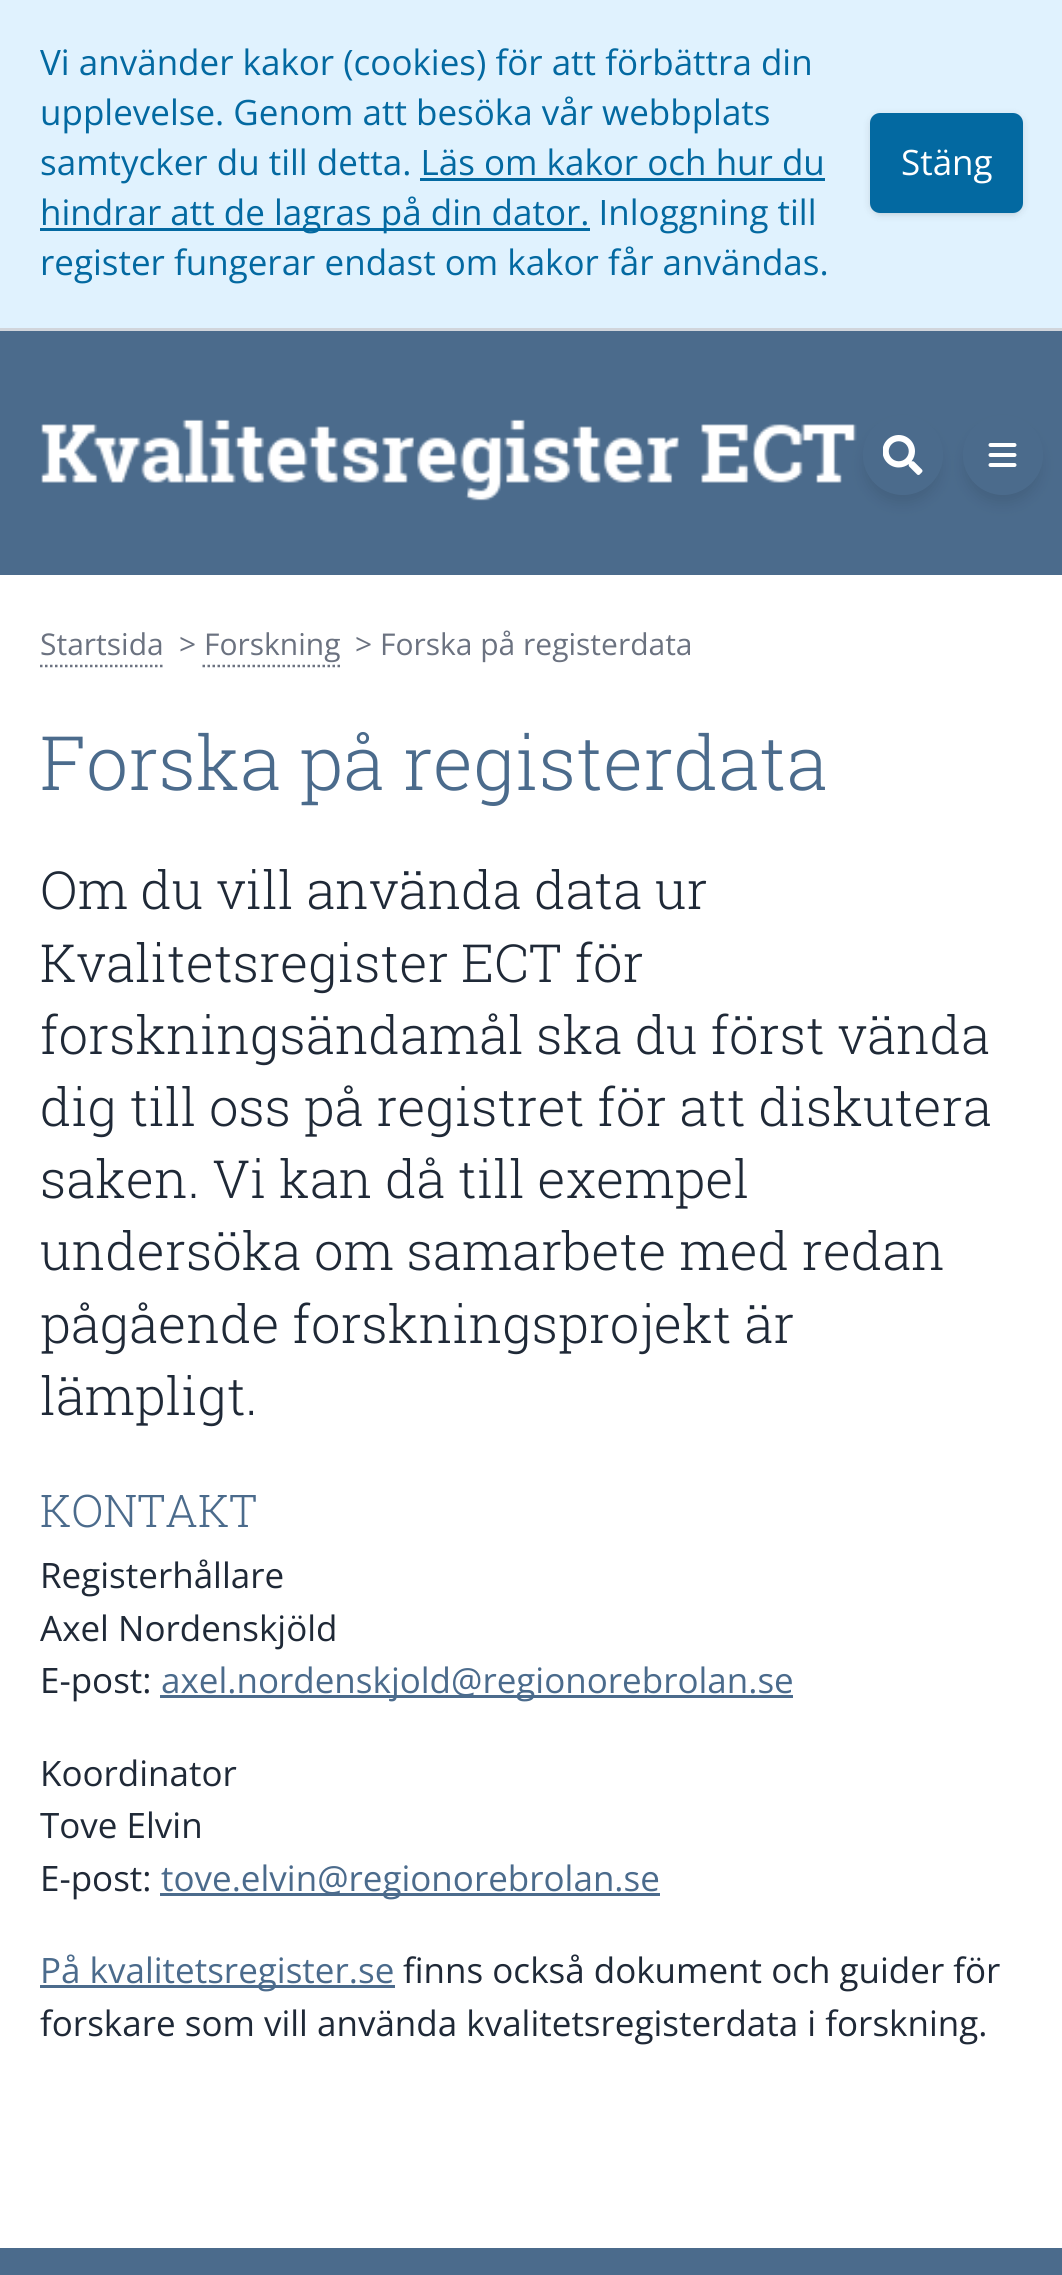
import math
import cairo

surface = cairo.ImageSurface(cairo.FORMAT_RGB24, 1062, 2275)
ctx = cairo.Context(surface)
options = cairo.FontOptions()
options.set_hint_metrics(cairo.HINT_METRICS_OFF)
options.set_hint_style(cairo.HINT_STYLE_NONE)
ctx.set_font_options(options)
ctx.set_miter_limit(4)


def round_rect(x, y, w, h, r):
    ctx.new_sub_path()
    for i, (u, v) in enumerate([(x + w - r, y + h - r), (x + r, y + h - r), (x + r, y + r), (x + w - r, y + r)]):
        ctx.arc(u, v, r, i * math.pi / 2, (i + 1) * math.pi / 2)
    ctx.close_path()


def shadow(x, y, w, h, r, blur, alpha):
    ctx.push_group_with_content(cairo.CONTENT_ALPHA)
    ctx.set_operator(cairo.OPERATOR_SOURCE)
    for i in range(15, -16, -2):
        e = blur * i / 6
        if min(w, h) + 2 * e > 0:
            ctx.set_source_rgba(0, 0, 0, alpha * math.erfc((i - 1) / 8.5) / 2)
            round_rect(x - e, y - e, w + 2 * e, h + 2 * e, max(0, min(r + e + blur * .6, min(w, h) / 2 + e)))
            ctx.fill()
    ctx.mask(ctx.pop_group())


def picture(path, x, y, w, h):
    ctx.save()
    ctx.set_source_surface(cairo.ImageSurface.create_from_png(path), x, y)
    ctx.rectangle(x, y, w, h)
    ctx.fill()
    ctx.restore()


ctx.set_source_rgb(1, 1, 1)
ctx.paint()
ctx.set_source_rgb(0.294, 0.42, 0.549)
ctx.rectangle(0, 331, 1062, 244)
ctx.fill()
ctx.set_source_rgb(0.878, 0.949, 0.996)
ctx.rectangle(0, 0, 1062, 328)
ctx.fill()
ctx.set_source_rgb(0.82, 0.835, 0.859)
ctx.rectangle(0, 328, 1062, 3)
ctx.fill()
ctx.select_font_face("Open Sans")
ctx.set_font_size(35)
ctx.set_source_rgb(0.012, 0.412, 0.631)
ctx.move_to(40, 75)
ctx.show_text("Vi använder kakor (cookies) för att förbättra din")
ctx.move_to(40, 125)
ctx.show_text("upplevelse. Genom att besöka vår webbplats")
ctx.move_to(40, 175)
ctx.show_text("samtycker du till detta. Läs om kakor och hur du")
ctx.rectangle(40, 228, 550, 3)
ctx.fill()
ctx.move_to(40, 225)
ctx.show_text("hindrar att de lagras på din dator. Inloggning till")
ctx.rectangle(420, 178, 405, 3)
ctx.fill()
ctx.move_to(40, 275)
ctx.show_text("register fungerar endast om kakor får användas.")
ctx.set_source_rgb(0, 0, 0)
shadow(873, 118, 147, 95, 8, 2.5, 0.1)
shadow(870, 115, 153, 100, 10, 4, 0.1)
ctx.set_source_rgb(0.012, 0.412, 0.631)
round_rect(870, 113, 153, 100, 10)
ctx.fill()
ctx.set_source_rgb(1, 1, 1)
ctx.move_to(901, 175)
ctx.show_text("Stäng")
picture("img1.png", 41, 419, 816, 82)
ctx.save()
ctx.set_fill_rule(cairo.FILL_RULE_EVEN_ODD)
ctx.new_path()
ctx.move_to(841, 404)
ctx.line_to(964, 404)
ctx.line_to(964, 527)
ctx.line_to(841, 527)
ctx.close_path()
ctx.move_to(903, 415)
ctx.curve_to(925, 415, 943, 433, 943, 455)
ctx.curve_to(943, 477, 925, 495, 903, 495)
ctx.curve_to(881, 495, 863, 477, 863, 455)
ctx.curve_to(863, 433, 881, 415, 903, 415)
ctx.close_path()
ctx.clip()
ctx.set_source_rgb(0, 0, 0)
shadow(865, 428, 75, 75, 37.5, 7.5, 0.1)
ctx.restore()
picture("img2.png", 883, 435, 40, 40)
ctx.save()
ctx.set_fill_rule(cairo.FILL_RULE_EVEN_ODD)
ctx.new_path()
ctx.move_to(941, 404)
ctx.line_to(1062, 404)
ctx.line_to(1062, 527)
ctx.line_to(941, 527)
ctx.close_path()
ctx.move_to(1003, 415)
ctx.curve_to(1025, 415, 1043, 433, 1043, 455)
ctx.curve_to(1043, 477, 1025, 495, 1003, 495)
ctx.curve_to(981, 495, 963, 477, 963, 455)
ctx.curve_to(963, 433, 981, 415, 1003, 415)
ctx.close_path()
ctx.clip()
ctx.set_source_rgb(0, 0, 0)
shadow(965, 428, 75, 75, 37.5, 7.5, 0.1)
ctx.restore()
picture("img3.png", 988, 443, 29, 24)
ctx.set_font_size(30)
ctx.set_source_rgb(0.42, 0.447, 0.502)
ctx.move_to(40, 655)
ctx.show_text("Startsida")
ctx.new_path()
ctx.move_to(40, 666)
ctx.line_to(162.5, 666)
ctx.set_line_width(2.5)
ctx.set_dash([2.5, 2.5])
ctx.stroke()
ctx.move_to(179, 655)
ctx.show_text("> Forskning")
ctx.new_path()
ctx.move_to(202.5, 666)
ctx.line_to(340, 666)
ctx.stroke()
ctx.move_to(355, 655)
ctx.show_text("> Forska på registerdata")
ctx.select_font_face("Roboto Slab Light")
ctx.set_font_size(75)
ctx.set_source_rgb(0.294, 0.42, 0.549)
ctx.move_to(40, 790)
ctx.show_text("Forska på registerdata")
ctx.set_font_size(52.5)
ctx.set_source_rgb(0.122, 0.161, 0.216)
ctx.move_to(40, 909)
ctx.show_text("Om du vill använda data ur")
ctx.move_to(40, 982)
ctx.show_text("Kvalitetsregister ECT för")
ctx.move_to(40, 1054)
ctx.show_text("forskningsändamål ska du först vända")
ctx.move_to(40, 1126)
ctx.show_text("dig till oss på registret för att diskutera")
ctx.move_to(40, 1198)
ctx.show_text("saken. Vi kan då till exempel")
ctx.move_to(40, 1270)
ctx.show_text("undersöka om samarbete med redan")
ctx.move_to(40, 1343)
ctx.show_text("pågående forskningsprojekt är")
ctx.move_to(40, 1415)
ctx.show_text("lämpligt.")
ctx.set_font_size(45)
ctx.set_source_rgb(0.294, 0.42, 0.549)
ctx.move_to(40, 1527)
ctx.show_text("KONTAKT")
ctx.select_font_face("Open Sans")
ctx.set_font_size(35)
ctx.set_source_rgb(0.122, 0.161, 0.216)
ctx.move_to(40, 1588)
ctx.show_text("Registerhållare")
ctx.move_to(40, 1641)
ctx.show_text("Axel Nordenskjöld")
ctx.move_to(40, 1693)
ctx.show_text("E-post:")
ctx.set_source_rgb(0.294, 0.42, 0.549)
ctx.rectangle(160, 1695, 633, 3)
ctx.fill()
ctx.move_to(161, 1693)
ctx.show_text("axel.nordenskjold@regionorebrolan.se")
ctx.set_source_rgb(0.122, 0.161, 0.216)
ctx.move_to(40, 1786)
ctx.show_text("Koordinator")
ctx.move_to(40, 1838)
ctx.show_text("Tove Elvin")
ctx.move_to(40, 1891)
ctx.show_text("E-post:")
ctx.set_source_rgb(0.294, 0.42, 0.549)
ctx.rectangle(160, 1893, 500, 3)
ctx.fill()
ctx.move_to(161, 1891)
ctx.show_text("tove.elvin@regionorebrolan.se")
ctx.rectangle(40, 1985, 355, 3)
ctx.fill()
ctx.move_to(40, 1983)
ctx.show_text("På kvalitetsregister.se")
ctx.set_source_rgb(0.122, 0.161, 0.216)
ctx.move_to(403, 1983)
ctx.show_text("finns också dokument och guider för")
ctx.move_to(40, 2036)
ctx.show_text("forskare som vill använda kvalitetsregisterdata i forskning.")
ctx.set_source_rgb(0.294, 0.42, 0.549)
ctx.rectangle(0, 2248, 1062, 27)
ctx.fill()
surface.write_to_png("page.png")
